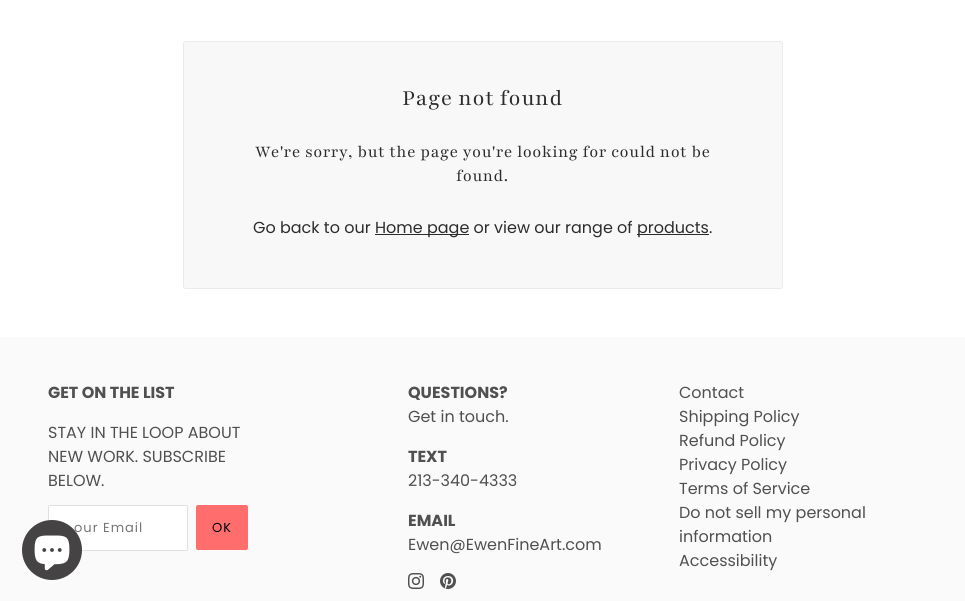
import math
import cairo

surface = cairo.ImageSurface(cairo.FORMAT_RGB24, 965, 601)
ctx = cairo.Context(surface)
options = cairo.FontOptions()
options.set_hint_metrics(cairo.HINT_METRICS_OFF)
options.set_hint_style(cairo.HINT_STYLE_NONE)
ctx.set_font_options(options)
ctx.set_miter_limit(4)


def spaced_text(x, y, s, letter, word):
    ctx.move_to(x, y)
    for ch in s:
        ctx.show_text(ch)
        ctx.rel_move_to(letter + word * (ch == ' '), 0)


def round_rect(x, y, w, h, r):
    ctx.new_sub_path()
    for i, (u, v) in enumerate([(x + w - r, y + h - r), (x + r, y + h - r), (x + r, y + r), (x + w - r, y + r)]):
        ctx.arc(u, v, r, i * math.pi / 2, (i + 1) * math.pi / 2)
    ctx.close_path()


def picture(path, x, y, w, h):
    ctx.save()
    ctx.set_source_surface(cairo.ImageSurface.create_from_png(path), x, y)
    ctx.rectangle(x, y, w, h)
    ctx.fill()
    ctx.restore()


ctx.set_source_rgb(1, 1, 1)
ctx.paint()
ctx.set_source_rgb(0.969, 0.969, 0.969)
round_rect(183.5, 41.5, 599, 247, 2.5)
ctx.fill_preserve()
ctx.set_source_rgb(0.918, 0.918, 0.918)
ctx.set_line_width(1)
ctx.stroke()
ctx.select_font_face("Playfair")
ctx.set_font_size(24)
ctx.set_source_rgb(0.173, 0.173, 0.173)
spaced_text(402, 105, "Page not found", 0.6, 0)
ctx.select_font_face("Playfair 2")
ctx.set_font_size(18)
spaced_text(255, 157, "We're sorry, but the page you're looking for could not be", 0.45, 0)
spaced_text(456, 181, "found.", 0.45, 0)
ctx.select_font_face("Poppins")
ctx.set_font_size(16)
ctx.move_to(253, 233)
ctx.show_text("Go back to our")
ctx.rectangle(375, 234, 94, 1)
ctx.fill()
ctx.move_to(375, 233)
ctx.show_text("Home page or view our range of")
ctx.rectangle(637, 234, 72, 1)
ctx.fill()
ctx.move_to(637, 233)
ctx.show_text("products.")
ctx.set_source_rgb(0.98, 0.98, 0.98)
ctx.rectangle(0, 337, 965, 264)
ctx.fill()
ctx.select_font_face("Poppins", cairo.FONT_SLANT_NORMAL, cairo.FONT_WEIGHT_BOLD)
ctx.set_source_rgb(0.314, 0.314, 0.314)
ctx.move_to(48, 398)
ctx.show_text("GET ON THE LIST")
ctx.select_font_face("Poppins")
ctx.move_to(48, 438)
ctx.show_text("STAY IN THE LOOP ABOUT")
ctx.move_to(48, 462)
ctx.show_text("NEW WORK. SUBSCRIBE")
ctx.move_to(48, 486)
ctx.show_text("BELOW.")
ctx.set_source_rgb(1, 1, 1)
round_rect(48.5, 505.5, 139, 45, 1.5)
ctx.fill_preserve()
ctx.set_source_rgb(0.878, 0.878, 0.878)
ctx.stroke()
ctx.set_font_size(13)
ctx.set_source_rgb(0.459, 0.459, 0.459)
spaced_text(74, 532, "our Email", 1, 0)
ctx.set_source_rgb(1, 0.427, 0.427)
round_rect(196, 505, 52, 45, 2)
ctx.fill()
ctx.set_source_rgb(0, 0, 0)
spaced_text(212, 532, "OK", 1, 0)
ctx.select_font_face("Poppins", cairo.FONT_SLANT_NORMAL, cairo.FONT_WEIGHT_BOLD)
ctx.set_font_size(16)
ctx.set_source_rgb(0.314, 0.314, 0.314)
ctx.move_to(408, 398)
ctx.show_text("QUESTIONS?")
ctx.select_font_face("Poppins")
ctx.move_to(408, 422)
ctx.show_text("Get in touch.")
ctx.select_font_face("Poppins", cairo.FONT_SLANT_NORMAL, cairo.FONT_WEIGHT_BOLD)
ctx.move_to(408, 462)
ctx.show_text("TEXT")
ctx.select_font_face("Poppins")
ctx.move_to(408, 486)
ctx.show_text("213-340-4333")
ctx.select_font_face("Poppins", cairo.FONT_SLANT_NORMAL, cairo.FONT_WEIGHT_BOLD)
ctx.move_to(408, 526)
ctx.show_text("EMAIL")
ctx.select_font_face("Poppins")
ctx.move_to(408, 550)
ctx.show_text("Ewen@EwenFineArt.com")
picture("img1.png", 408, 573, 16, 16)
picture("img2.png", 440, 573, 16, 16)
ctx.move_to(679, 398)
ctx.show_text("Contact")
ctx.move_to(679, 422)
ctx.show_text("Shipping Policy")
ctx.move_to(679, 446)
ctx.show_text("Refund Policy")
ctx.move_to(679, 470)
ctx.show_text("Privacy Policy")
ctx.move_to(679, 494)
ctx.show_text("Terms of Service")
ctx.move_to(679, 518)
ctx.show_text("Do not sell my personal")
ctx.move_to(679, 542)
ctx.show_text("information")
ctx.move_to(679, 566)
ctx.show_text("Accessibility")
ctx.set_source_rgb(0.275, 0.263, 0.271)
ctx.new_path()
ctx.arc(52, 550, 30, 0, 2 * math.pi)
ctx.fill()
picture("img3.png", 34, 535, 36, 36)
surface.write_to_png("page.png")
